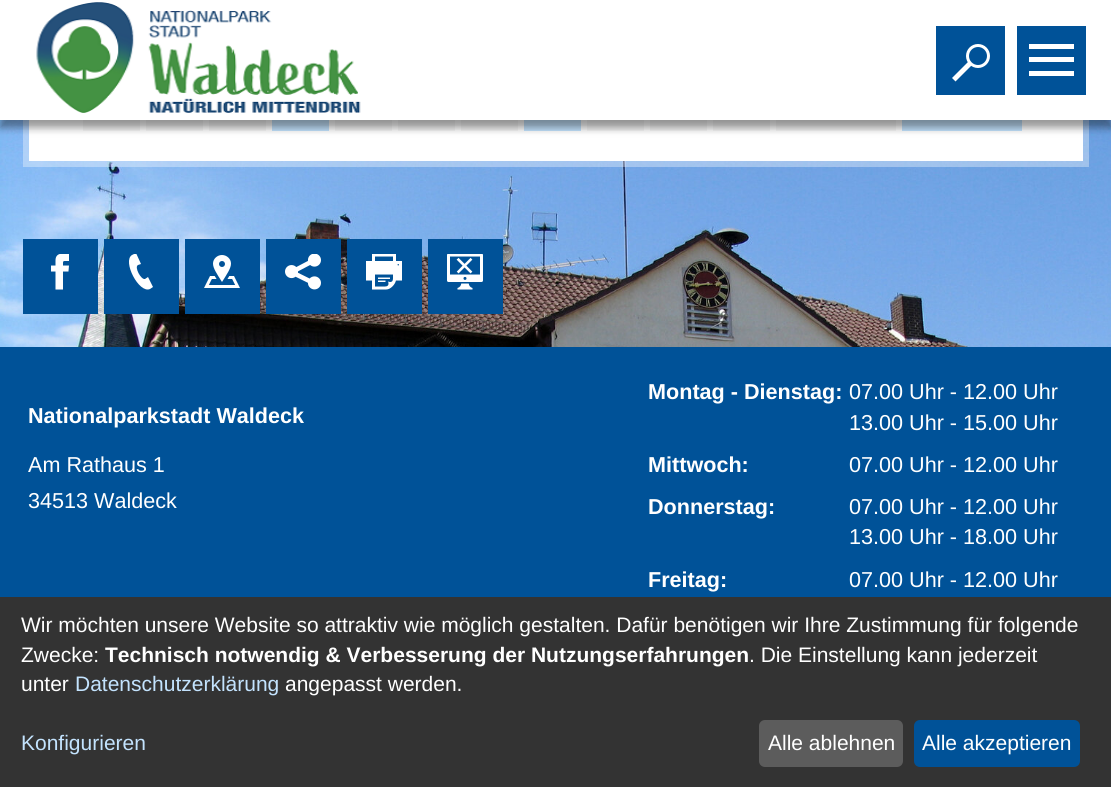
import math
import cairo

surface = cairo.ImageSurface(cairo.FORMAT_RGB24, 1111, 787)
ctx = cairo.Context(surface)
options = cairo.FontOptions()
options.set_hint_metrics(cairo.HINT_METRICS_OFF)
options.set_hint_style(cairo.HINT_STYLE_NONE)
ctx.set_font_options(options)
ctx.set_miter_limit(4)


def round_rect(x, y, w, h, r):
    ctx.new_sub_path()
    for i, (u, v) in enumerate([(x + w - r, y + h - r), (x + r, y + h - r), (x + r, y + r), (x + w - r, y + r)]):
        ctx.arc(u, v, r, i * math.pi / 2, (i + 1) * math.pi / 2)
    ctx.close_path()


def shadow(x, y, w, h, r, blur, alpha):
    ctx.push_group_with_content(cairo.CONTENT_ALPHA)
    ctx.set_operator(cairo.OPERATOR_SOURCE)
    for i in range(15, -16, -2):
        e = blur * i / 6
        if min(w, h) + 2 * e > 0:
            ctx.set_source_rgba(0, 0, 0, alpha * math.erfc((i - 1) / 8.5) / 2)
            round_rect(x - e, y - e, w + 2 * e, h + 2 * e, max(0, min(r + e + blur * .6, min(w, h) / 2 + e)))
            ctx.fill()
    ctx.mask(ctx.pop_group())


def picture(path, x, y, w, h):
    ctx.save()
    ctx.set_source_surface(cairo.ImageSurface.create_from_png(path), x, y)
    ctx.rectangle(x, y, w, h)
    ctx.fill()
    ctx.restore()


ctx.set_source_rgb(1, 1, 1)
ctx.paint()
picture("img1.png", 0, 120, 1111, 227)
ctx.rectangle(26, -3, 1060, 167)
ctx.set_source_rgba(1, 1, 1, 0.35)
ctx.set_line_width(6)
ctx.stroke()
ctx.set_source_rgb(1, 1, 1)
ctx.rectangle(29, 120, 1054, 41)
ctx.fill()
ctx.set_source_rgb(0.961, 0.961, 0.961)
ctx.rectangle(83, 120, 57, 11)
ctx.fill()
ctx.rectangle(146, 120, 57, 11)
ctx.fill()
ctx.rectangle(209, 120, 57, 11)
ctx.fill()
ctx.set_source_rgb(0.765, 0.89, 0.996)
ctx.rectangle(272, 120, 57, 11)
ctx.fill()
ctx.set_source_rgb(0.961, 0.961, 0.961)
ctx.rectangle(335, 120, 57, 11)
ctx.fill()
ctx.rectangle(398, 120, 57, 11)
ctx.fill()
ctx.rectangle(461, 120, 57, 11)
ctx.fill()
ctx.set_source_rgb(0.765, 0.89, 0.996)
ctx.rectangle(524, 120, 57, 11)
ctx.fill()
ctx.set_source_rgb(0.961, 0.961, 0.961)
ctx.rectangle(587, 120, 57, 11)
ctx.fill()
ctx.rectangle(650, 120, 57, 11)
ctx.fill()
ctx.rectangle(713, 120, 57, 11)
ctx.fill()
ctx.rectangle(776, 120, 120, 11)
ctx.fill()
ctx.set_source_rgb(0.765, 0.89, 0.996)
ctx.rectangle(902, 120, 120, 11)
ctx.fill()
ctx.set_source_rgb(0, 0.322, 0.596)
ctx.rectangle(23, 239, 75, 75)
ctx.fill()
picture("img2.png", 51, 254, 18, 36)
ctx.rectangle(104, 239, 75, 75)
ctx.fill()
ctx.save()
ctx.rectangle(123, 254, 36, 36)
ctx.clip()
ctx.set_source_rgb(1, 1, 1)
ctx.new_path()
ctx.move_to(153, 287)
ctx.line_to(148, 277)
ctx.line_to(145, 279)
ctx.curve_to(141, 280, 134, 267, 138, 265)
ctx.line_to(141, 264)
ctx.line_to(136, 253)
ctx.line_to(132, 255)
ctx.curve_to(122, 261, 139, 294, 150, 289)
ctx.close_path()
ctx.fill()
ctx.restore()
ctx.rectangle(185, 239, 75, 75)
ctx.fill()
picture("img3.png", 204, 255, 36, 33)
ctx.rectangle(266, 239, 75, 75)
ctx.fill()
picture("img4.png", 285, 254, 36, 36)
ctx.rectangle(347, 239, 75, 75)
ctx.fill()
picture("img5.png", 366, 254, 36, 36)
ctx.rectangle(428, 239, 75, 75)
ctx.fill()
picture("img6.png", 447, 254, 36, 36)
ctx.set_source_rgb(0, 0, 0)
shadow(0, 8, 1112, 120, 0, 4, 0.4)
ctx.set_source_rgb(1, 1, 1)
ctx.rectangle(0, 0, 1111, 120)
ctx.fill()
picture("img7.png", 36, 2, 325, 111)
ctx.set_source_rgb(0, 0.322, 0.596)
ctx.rectangle(936, 26, 69, 69)
ctx.fill()
ctx.set_source_rgb(1, 1, 1)
ctx.new_path()
ctx.move_to(952, 78)
ctx.line_to(984, 46)
ctx.line_to(987.5, 49.5)
ctx.line_to(955.5, 81.5)
ctx.close_path()
ctx.fill()
ctx.set_source_rgb(0, 0.322, 0.596)
ctx.arc(978, 56, 10.5, 0, 2 * math.pi)
ctx.fill_preserve()
ctx.set_source_rgb(1, 1, 1)
ctx.set_line_width(3)
ctx.stroke()
ctx.set_source_rgb(0, 0.322, 0.596)
ctx.rectangle(1017, 26, 69, 69)
ctx.fill()
ctx.set_source_rgb(1, 1, 1)
ctx.rectangle(1029, 57, 45, 5)
ctx.fill()
ctx.rectangle(1029, 44, 45, 5)
ctx.fill()
ctx.rectangle(1029, 71, 45, 5)
ctx.fill()
ctx.set_source_rgb(0, 0.322, 0.596)
ctx.rectangle(0, 347, 1111, 250)
ctx.fill()
ctx.select_font_face("Liberation Sans", cairo.FONT_SLANT_NORMAL, cairo.FONT_WEIGHT_BOLD)
ctx.set_font_size(21.6)
ctx.set_source_rgb(1, 1, 1)
ctx.move_to(28, 423)
ctx.show_text("Nationalparkstadt Waldeck")
ctx.select_font_face("Liberation Sans")
ctx.move_to(28, 472)
ctx.show_text("Am Rathaus 1")
ctx.move_to(28, 508)
ctx.show_text("34513 Waldeck")
ctx.select_font_face("Liberation Sans", cairo.FONT_SLANT_NORMAL, cairo.FONT_WEIGHT_BOLD)
ctx.move_to(648, 399)
ctx.show_text("Montag - Dienstag:")
ctx.select_font_face("Liberation Sans")
ctx.move_to(849, 399)
ctx.show_text("07.00 Uhr - 12.00 Uhr")
ctx.move_to(849, 430)
ctx.show_text("13.00 Uhr - 15.00 Uhr")
ctx.select_font_face("Liberation Sans", cairo.FONT_SLANT_NORMAL, cairo.FONT_WEIGHT_BOLD)
ctx.move_to(648, 472)
ctx.show_text("Mittwoch:")
ctx.select_font_face("Liberation Sans")
ctx.move_to(849, 472)
ctx.show_text("07.00 Uhr - 12.00 Uhr")
ctx.select_font_face("Liberation Sans", cairo.FONT_SLANT_NORMAL, cairo.FONT_WEIGHT_BOLD)
ctx.move_to(648, 514)
ctx.show_text("Donnerstag:")
ctx.select_font_face("Liberation Sans")
ctx.move_to(849, 514)
ctx.show_text("07.00 Uhr - 12.00 Uhr")
ctx.move_to(849, 544)
ctx.show_text("13.00 Uhr - 18.00 Uhr")
ctx.select_font_face("Liberation Sans", cairo.FONT_SLANT_NORMAL, cairo.FONT_WEIGHT_BOLD)
ctx.move_to(648, 587)
ctx.show_text("Freitag:")
ctx.select_font_face("Liberation Sans")
ctx.move_to(849, 587)
ctx.show_text("07.00 Uhr - 12.00 Uhr")
ctx.set_source_rgb(0.2, 0.2, 0.2)
ctx.rectangle(0, 597, 1111, 190)
ctx.fill()
ctx.set_font_size(21)
ctx.set_source_rgb(1, 1, 1)
ctx.move_to(21, 632)
ctx.show_text("Wir möchten unsere Website so attraktiv wie möglich gestalten. Dafür benötigen wir Ihre Zustimmung für folgende")
ctx.move_to(21, 662)
ctx.show_text("Zwecke:")
ctx.select_font_face("Liberation Sans", cairo.FONT_SLANT_NORMAL, cairo.FONT_WEIGHT_BOLD)
ctx.move_to(105, 662)
ctx.show_text("Technisch notwendig & Verbesserung der Nutzungserfahrungen")
ctx.select_font_face("Liberation Sans")
ctx.move_to(749, 662)
ctx.show_text(". Die Einstellung kann jederzeit")
ctx.move_to(21, 691)
ctx.show_text("unter")
ctx.set_source_rgb(0.765, 0.89, 0.996)
ctx.move_to(75, 691)
ctx.show_text("Datenschutzerklärung")
ctx.set_source_rgb(1, 1, 1)
ctx.move_to(285, 691)
ctx.show_text("angepasst werden.")
ctx.set_source_rgb(0.765, 0.89, 0.996)
ctx.move_to(21, 750)
ctx.show_text("Konfigurieren")
ctx.set_source_rgb(0.361, 0.361, 0.361)
round_rect(759, 720, 144, 47, 6)
ctx.fill()
ctx.set_source_rgb(1, 1, 1)
ctx.move_to(768, 750)
ctx.show_text("Alle ablehnen")
ctx.set_source_rgb(0, 0.322, 0.596)
round_rect(914, 720, 166, 47, 6)
ctx.fill()
ctx.set_source_rgb(1, 1, 1)
ctx.move_to(922, 750)
ctx.show_text("Alle akzeptieren")
surface.write_to_png("page.png")
